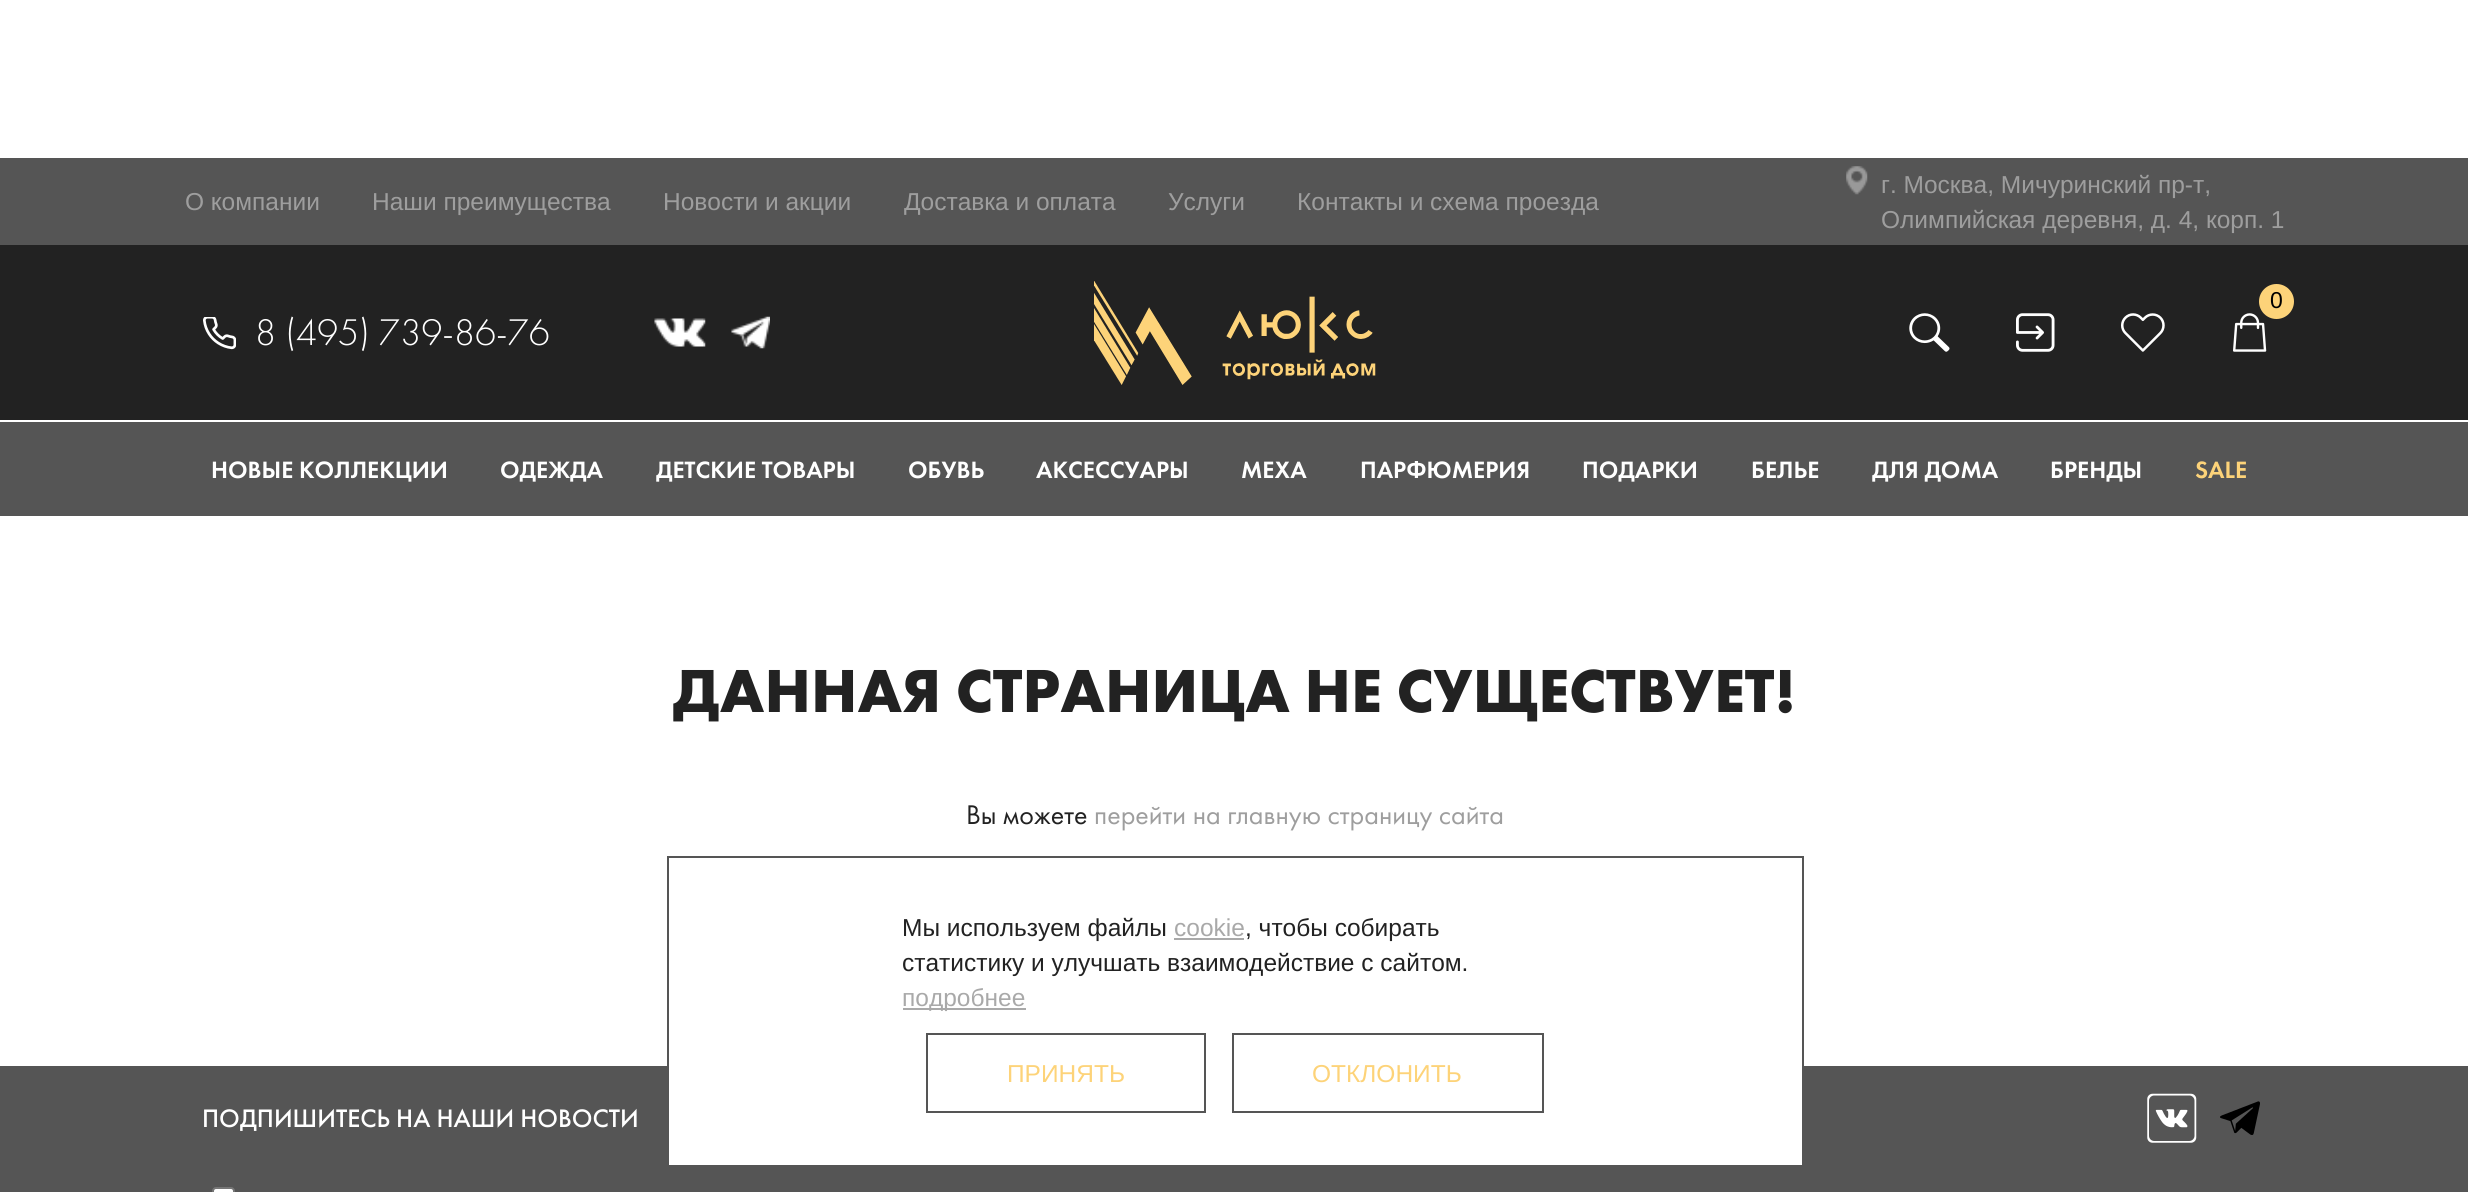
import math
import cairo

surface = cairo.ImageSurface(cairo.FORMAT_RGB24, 2468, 1192)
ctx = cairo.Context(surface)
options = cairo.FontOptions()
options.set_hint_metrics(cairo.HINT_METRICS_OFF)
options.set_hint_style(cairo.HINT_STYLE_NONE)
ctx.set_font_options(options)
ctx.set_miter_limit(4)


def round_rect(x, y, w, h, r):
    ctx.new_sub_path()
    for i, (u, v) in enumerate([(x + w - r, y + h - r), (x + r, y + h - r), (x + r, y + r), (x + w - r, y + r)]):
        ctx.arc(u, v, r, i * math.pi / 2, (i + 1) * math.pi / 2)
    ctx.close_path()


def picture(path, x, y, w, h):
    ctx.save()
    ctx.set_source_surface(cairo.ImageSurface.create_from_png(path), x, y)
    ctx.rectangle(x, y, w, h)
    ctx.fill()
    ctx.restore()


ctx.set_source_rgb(1, 1, 1)
ctx.paint()
ctx.set_source_rgb(0.333, 0.333, 0.333)
ctx.rectangle(186, 158, 2282, 87)
ctx.fill()
ctx.select_font_face("Liberation Sans")
ctx.set_font_size(24.5)
ctx.set_source_rgb(0.62, 0.62, 0.62)
ctx.move_to(185, 210)
ctx.show_text("О компании")
ctx.set_source_rgb(0.333, 0.333, 0.333)
ctx.rectangle(0, 158, 186, 87)
ctx.fill()
ctx.set_source_rgb(0.62, 0.62, 0.62)
ctx.move_to(372, 210)
ctx.show_text("Наши преимущества")
ctx.move_to(663, 210)
ctx.show_text("Новости и акции")
ctx.move_to(904, 210)
ctx.show_text("Доставка и оплата")
ctx.move_to(1168, 210)
ctx.show_text("Услуги")
ctx.move_to(1297, 210)
ctx.show_text("Контакты и схема проезда")
picture("img1.png", 1846, 166, 22, 29)
ctx.move_to(1881, 193)
ctx.show_text("г. Москва, Мичуринский пр-т,")
ctx.move_to(1881, 228)
ctx.show_text("Олимпийская деревня, д. 4, корп. 1")
ctx.set_source_rgb(0.133, 0.133, 0.133)
ctx.rectangle(0, 245, 2468, 175)
ctx.fill()
picture("img2.png", 1094, 281, 282, 104)
picture("img3.png", 2233, 313, 34, 39)
ctx.set_source_rgb(0.992, 0.827, 0.475)
ctx.arc(2276.5, 301.5, 17.5, 0, 2 * math.pi)
ctx.fill()
ctx.set_font_size(23)
ctx.set_source_rgb(0, 0, 0)
ctx.move_to(2270, 308)
ctx.show_text("0")
picture("img4.png", 1909, 313, 41, 39)
picture("img5.png", 2016, 313, 39, 39)
picture("img6.png", 2121, 313, 44, 39)
picture("img7.png", 203, 317, 33, 33)
ctx.select_font_face("Futura PT Light")
ctx.set_font_size(38.5)
ctx.set_source_rgb(1, 1, 1)
ctx.move_to(255, 345)
ctx.show_text("8 (495) 739-86-76")
picture("img8.png", 654, 318, 52, 29)
picture("img9.png", 731, 316, 39, 33)
ctx.set_source_rgb(0.333, 0.333, 0.333)
ctx.rectangle(0, 422, 2468, 94)
ctx.fill()
ctx.select_font_face("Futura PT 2 Medium")
ctx.set_font_size(24.5)
ctx.set_source_rgb(1, 1, 1)
ctx.move_to(211, 478)
ctx.show_text("НОВЫЕ КОЛЛЕКЦИИ")
ctx.move_to(500, 478)
ctx.show_text("ОДЕЖДА")
ctx.move_to(656, 478)
ctx.show_text("ДЕТСКИЕ ТОВАРЫ")
ctx.move_to(908, 478)
ctx.show_text("ОБУВЬ")
ctx.move_to(1036, 478)
ctx.show_text("АКСЕССУАРЫ")
ctx.move_to(1241, 478)
ctx.show_text("МЕХА")
ctx.move_to(1360, 478)
ctx.show_text("ПАРФЮМЕРИЯ")
ctx.move_to(1582, 478)
ctx.show_text("ПОДАРКИ")
ctx.move_to(1751, 478)
ctx.show_text("БЕЛЬЕ")
ctx.move_to(1872, 478)
ctx.show_text("ДЛЯ ДОМА")
ctx.move_to(2050, 478)
ctx.show_text("БРЕНДЫ")
ctx.set_source_rgb(0.992, 0.827, 0.475)
ctx.move_to(2195, 478)
ctx.show_text("SALE")
ctx.select_font_face("Futura PT", cairo.FONT_SLANT_NORMAL, cairo.FONT_WEIGHT_BOLD)
ctx.set_font_size(63)
ctx.set_source_rgb(0.133, 0.133, 0.133)
ctx.move_to(673, 712)
ctx.show_text("ДАННАЯ СТРАНИЦА НЕ СУЩЕСТВУЕТ!")
ctx.select_font_face("Futura PT")
ctx.set_font_size(28)
ctx.move_to(966, 824)
ctx.show_text("Вы можете")
ctx.set_source_rgb(0.62, 0.62, 0.62)
ctx.move_to(1094, 824)
ctx.show_text("перейти на главную страницу сайта")
ctx.set_source_rgb(0.333, 0.333, 0.333)
ctx.rectangle(0, 1066, 2468, 126)
ctx.fill()
ctx.set_source_rgb(1, 1, 1)
ctx.rectangle(669, 1066, 1133, 99)
ctx.fill()
ctx.rectangle(668, 857, 1135, 309)
ctx.set_source_rgb(0.333, 0.333, 0.333)
ctx.stroke()
ctx.select_font_face("Liberation Sans")
ctx.set_font_size(24.5)
ctx.set_source_rgb(0.133, 0.133, 0.133)
ctx.move_to(902, 936)
ctx.show_text("Мы используем файлы")
ctx.set_source_rgb(0.663, 0.663, 0.663)
ctx.move_to(1174, 936)
ctx.show_text("cookie")
ctx.rectangle(1174, 938, 70, 2)
ctx.fill()
ctx.set_source_rgb(0.133, 0.133, 0.133)
ctx.move_to(1245, 936)
ctx.show_text(", чтобы собирать")
ctx.move_to(902, 971)
ctx.show_text("статистику и улучшать взаимодействие с сайтом.")
ctx.set_source_rgb(0.663, 0.663, 0.663)
ctx.rectangle(903, 1008, 123, 2)
ctx.fill()
ctx.move_to(902, 1006)
ctx.show_text("подробнее")
ctx.rectangle(927, 1034, 278, 78)
ctx.set_source_rgb(0.333, 0.333, 0.333)
ctx.stroke()
ctx.set_source_rgb(0.992, 0.827, 0.475)
ctx.move_to(1007, 1082)
ctx.show_text("ПРИНЯТЬ")
ctx.rectangle(1233, 1034, 310, 78)
ctx.set_source_rgb(0.333, 0.333, 0.333)
ctx.stroke()
ctx.set_source_rgb(0.992, 0.827, 0.475)
ctx.move_to(1312, 1082)
ctx.show_text("ОТКЛОНИТЬ")
ctx.select_font_face("Futura PT Medium")
ctx.set_font_size(26.25)
ctx.set_source_rgb(1, 1, 1)
ctx.move_to(202, 1127)
ctx.show_text("ПОДПИШИТЕСЬ НА НАШИ НОВОСТИ")
round_rect(213, 1188, 21, 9, 3)
ctx.fill_preserve()
ctx.set_source_rgb(0.463, 0.463, 0.463)
ctx.stroke()
picture("img10.png", 2147, 1093, 50, 50)
picture("img11.png", 2220, 1101, 40, 34)
surface.write_to_png("page.png")
